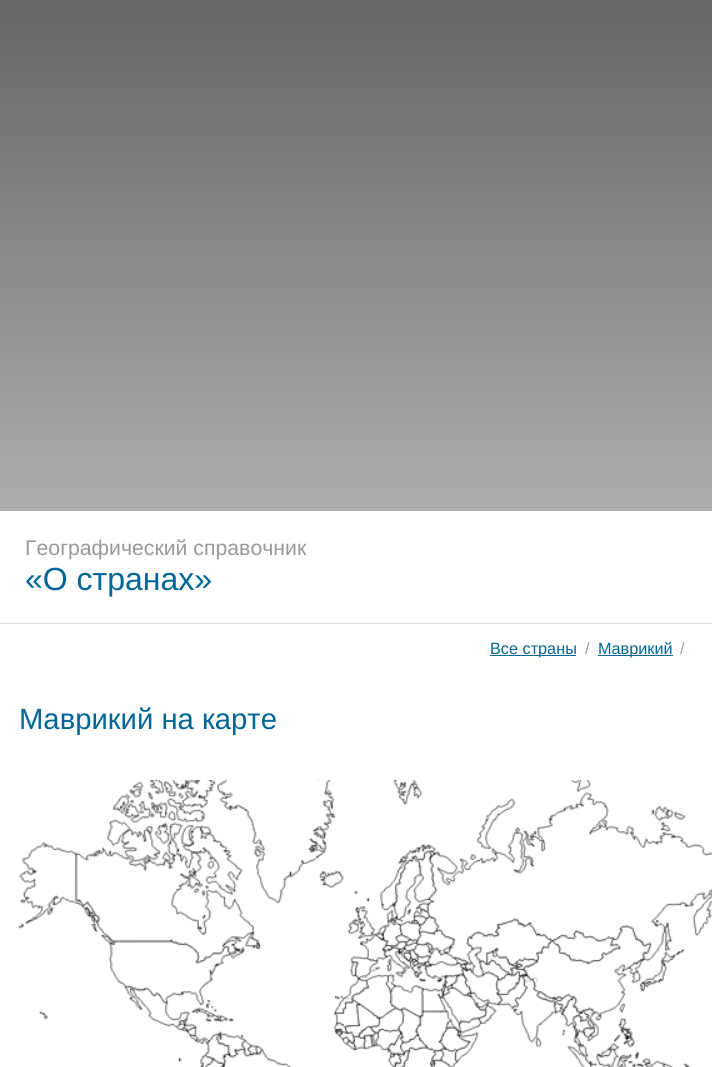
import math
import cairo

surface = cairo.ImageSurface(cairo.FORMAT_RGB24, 712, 1067)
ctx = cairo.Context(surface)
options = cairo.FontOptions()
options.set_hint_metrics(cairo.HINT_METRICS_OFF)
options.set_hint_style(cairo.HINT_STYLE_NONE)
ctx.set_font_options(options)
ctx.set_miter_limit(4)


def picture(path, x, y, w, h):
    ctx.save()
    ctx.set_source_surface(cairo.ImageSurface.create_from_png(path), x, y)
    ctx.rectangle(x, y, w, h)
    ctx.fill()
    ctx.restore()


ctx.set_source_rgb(1, 1, 1)
ctx.paint()
gradient = cairo.LinearGradient(356, 0, 356, 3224)
gradient.add_color_stop_rgba(0, 0.4, 0.4, 0.4, 1)
gradient.add_color_stop_rgba(0.19, 0.733, 0.733, 0.733, 1)
ctx.set_source(gradient)
ctx.rectangle(0, 0, 712, 511)
ctx.fill()
ctx.set_source_rgb(0.867, 0.867, 0.867)
ctx.rectangle(0, 623, 712, 1)
ctx.fill()
ctx.select_font_face("Liberation Sans")
ctx.set_font_size(21.25)
ctx.set_source_rgb(0.6, 0.6, 0.6)
ctx.move_to(25, 555)
ctx.show_text("Географический справочник")
ctx.set_font_size(32)
ctx.set_source_rgb(0, 0.4, 0.6)
ctx.move_to(25, 590)
ctx.show_text("«О странах»")
ctx.rectangle(490, 655, 86, 1)
ctx.fill()
ctx.set_font_size(16.25)
ctx.move_to(490, 654)
ctx.show_text("Все страны")
ctx.set_source_rgb(0.6, 0.6, 0.6)
ctx.move_to(585, 654)
ctx.show_text("/")
ctx.set_source_rgb(0, 0.4, 0.6)
ctx.rectangle(598, 655, 75, 1)
ctx.fill()
ctx.move_to(598, 654)
ctx.show_text("Маврикий")
ctx.set_source_rgb(0.6, 0.6, 0.6)
ctx.move_to(680, 654)
ctx.show_text("/")
ctx.set_font_size(29.25)
ctx.set_source_rgb(0, 0.4, 0.6)
ctx.move_to(19, 729)
ctx.show_text("Маврикий на карте")
picture("img1.png", 18, 780, 694, 287)
surface.write_to_png("page.png")
